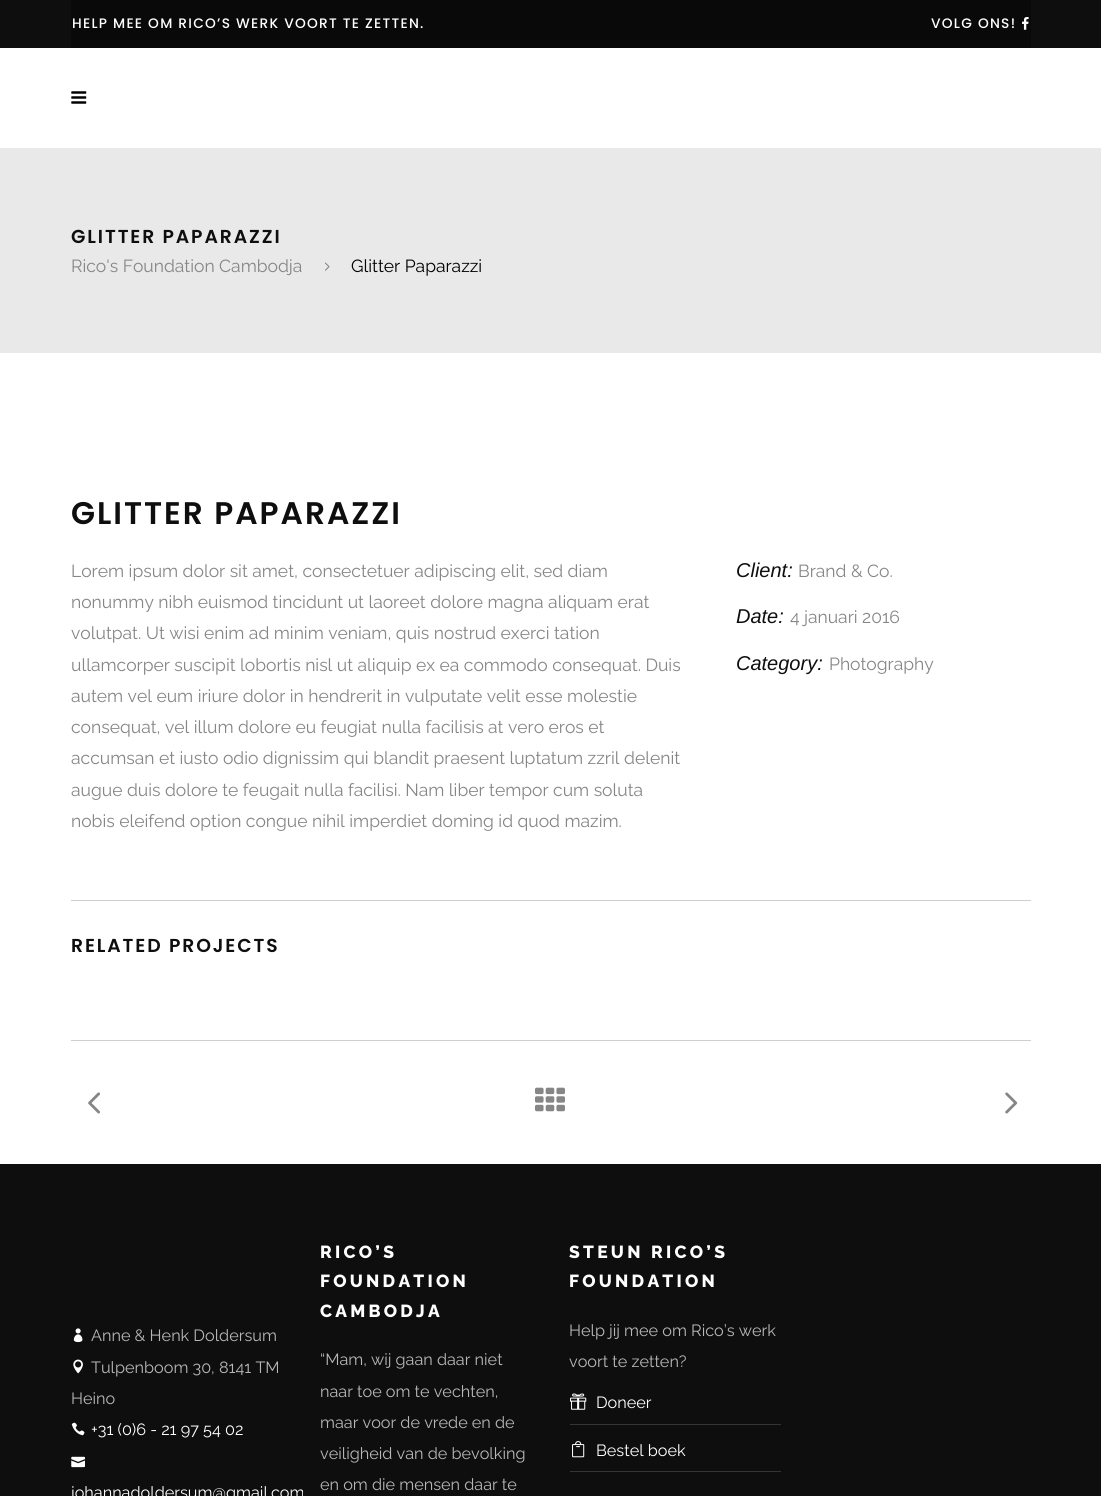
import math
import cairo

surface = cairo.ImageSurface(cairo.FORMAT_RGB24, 1101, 1496)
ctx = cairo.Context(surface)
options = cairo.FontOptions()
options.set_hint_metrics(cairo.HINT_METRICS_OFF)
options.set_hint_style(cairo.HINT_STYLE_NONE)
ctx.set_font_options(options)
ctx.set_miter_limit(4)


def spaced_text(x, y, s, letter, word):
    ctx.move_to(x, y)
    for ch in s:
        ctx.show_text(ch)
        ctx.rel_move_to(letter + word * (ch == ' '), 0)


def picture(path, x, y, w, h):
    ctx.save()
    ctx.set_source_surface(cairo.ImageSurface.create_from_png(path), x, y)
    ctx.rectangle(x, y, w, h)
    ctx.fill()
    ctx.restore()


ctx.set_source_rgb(1, 1, 1)
ctx.paint()
ctx.set_source_rgb(0.055, 0.055, 0.055)
ctx.rectangle(0, 0, 1101, 48)
ctx.fill()
ctx.set_source_rgb(0.039, 0.039, 0.039)
ctx.rectangle(71, 0, 960, 48)
ctx.fill()
ctx.select_font_face("Poppins Medium")
ctx.set_font_size(13.75)
ctx.set_source_rgb(1, 1, 1)
spaced_text(72, 28, "HELP MEE OM RICO’S WERK VOORT TE ZETTEN.", 1.25, 0)
spaced_text(931, 28, "VOLG ONS!", 1.25, 0)
picture("img1.png", 1022, 17, 7, 13)
picture("img2.png", 71, 91, 16, 13)
ctx.set_source_rgb(0.914, 0.914, 0.914)
ctx.rectangle(0, 148, 1101, 205)
ctx.fill()
ctx.select_font_face("Poppins SemiBold")
ctx.set_font_size(18.75)
ctx.set_source_rgb(0.055, 0.055, 0.055)
spaced_text(71, 243, "GLITTER PAPARAZZI", 1.9, 0)
ctx.select_font_face("Raleway")
ctx.set_font_size(17.5)
ctx.set_source_rgb(0.525, 0.525, 0.525)
ctx.move_to(71, 272)
ctx.show_text("Rico's Foundation Cambodja")
picture("img3.png", 325, 262, 5, 9)
ctx.set_source_rgb(0, 0, 0)
ctx.move_to(351, 272)
ctx.show_text("Glitter Paparazzi")
ctx.select_font_face("Poppins SemiBold")
ctx.set_font_size(31.25)
ctx.set_source_rgb(0.055, 0.055, 0.055)
spaced_text(71, 524, "GLITTER PAPARAZZI", 2, 0)
ctx.select_font_face("Raleway")
ctx.set_font_size(17.5)
ctx.set_source_rgb(0.525, 0.525, 0.525)
ctx.move_to(71, 577)
ctx.show_text("Lorem ipsum dolor sit amet, consectetuer adipiscing elit, sed diam")
ctx.move_to(71, 608)
ctx.show_text("nonummy nibh euismod tincidunt ut laoreet dolore magna aliquam erat")
ctx.move_to(71, 639)
ctx.show_text("volutpat. Ut wisi enim ad minim veniam, quis nostrud exerci tation")
ctx.move_to(71, 671)
ctx.show_text("ullamcorper suscipit lobortis nisl ut aliquip ex ea commodo consequat. Duis")
ctx.move_to(71, 702)
ctx.show_text("autem vel eum iriure dolor in hendrerit in vulputate velit esse molestie")
ctx.move_to(71, 733)
ctx.show_text("consequat, vel illum dolore eu feugiat nulla facilisis at vero eros et")
ctx.move_to(71, 764)
ctx.show_text("accumsan et iusto odio dignissim qui blandit praesent luptatum zzril delenit")
ctx.move_to(71, 796)
ctx.show_text("augue duis dolore te feugait nulla facilisi. Nam liber tempor cum soluta")
ctx.move_to(71, 827)
ctx.show_text("nobis eleifend option congue nihil imperdiet doming id quod mazim.")
ctx.select_font_face("Liberation Sans", cairo.FONT_SLANT_ITALIC)
ctx.set_font_size(20)
ctx.set_source_rgb(0.055, 0.055, 0.055)
ctx.move_to(736, 577)
ctx.show_text("Client:")
ctx.select_font_face("Raleway")
ctx.set_font_size(17.5)
ctx.set_source_rgb(0.525, 0.525, 0.525)
ctx.move_to(798, 577)
ctx.show_text("Brand & Co.")
ctx.select_font_face("Liberation Sans", cairo.FONT_SLANT_ITALIC)
ctx.set_font_size(20)
ctx.set_source_rgb(0.055, 0.055, 0.055)
ctx.move_to(736, 623)
ctx.show_text("Date:")
ctx.select_font_face("Raleway")
ctx.set_font_size(17.5)
ctx.set_source_rgb(0.525, 0.525, 0.525)
ctx.move_to(790, 623)
ctx.show_text("4 januari 2016")
ctx.select_font_face("Liberation Sans", cairo.FONT_SLANT_ITALIC)
ctx.set_font_size(20)
ctx.set_source_rgb(0.055, 0.055, 0.055)
ctx.move_to(736, 670)
ctx.show_text("Category:")
ctx.select_font_face("Raleway")
ctx.set_font_size(17.5)
ctx.set_source_rgb(0.525, 0.525, 0.525)
ctx.move_to(829, 670)
ctx.show_text("Photography")
ctx.set_source_rgb(0.812, 0.812, 0.812)
ctx.rectangle(71, 900, 960, 1)
ctx.fill()
ctx.select_font_face("Poppins SemiBold")
ctx.set_font_size(18.75)
ctx.set_source_rgb(0.055, 0.055, 0.055)
spaced_text(71, 952, "RELATED PROJECTS", 1.9, 0)
ctx.set_source_rgb(0.812, 0.812, 0.812)
ctx.rectangle(71, 1040, 960, 1)
ctx.fill()
picture("img4.png", 88, 1092, 12, 22)
picture("img5.png", 535, 1087, 30, 25)
picture("img6.png", 1005, 1092, 13, 22)
ctx.set_source_rgb(0.055, 0.055, 0.055)
ctx.rectangle(0, 1164, 1101, 332)
ctx.fill()
picture("img7.png", 73, 1328, 10, 15)
ctx.select_font_face("Raleway")
ctx.set_font_size(16.25)
ctx.set_source_rgb(0.718, 0.718, 0.718)
ctx.move_to(91, 1341)
ctx.show_text("Anne & Henk Doldersum")
picture("img8.png", 73, 1359, 10, 15)
ctx.move_to(91, 1373)
ctx.show_text("Tulpenboom 30, 8141 TM")
ctx.move_to(71, 1404)
ctx.show_text("Heino")
picture("img9.png", 71, 1422, 14, 14)
ctx.set_source_rgb(1, 1, 1)
ctx.move_to(91, 1435)
ctx.show_text("+31 (0)6 - 21 97 54 02")
picture("img10.png", 71, 1456, 14, 12)
ctx.move_to(71, 1498)
ctx.show_text("johannadoldersum@gmail.com")
ctx.select_font_face("Raleway ExtraBold")
ctx.set_font_size(17.5)
spaced_text(320, 1258, "RICO’S", 3.25, 0)
spaced_text(320, 1287, "FOUNDATION", 3.25, 0)
spaced_text(320, 1317, "CAMBODJA", 3.25, 0)
ctx.select_font_face("Raleway")
ctx.set_font_size(16.25)
ctx.set_source_rgb(0.718, 0.718, 0.718)
ctx.move_to(320, 1365)
ctx.show_text("“Mam, wij gaan daar niet")
ctx.move_to(320, 1397)
ctx.show_text("naar toe om te vechten,")
ctx.move_to(320, 1428)
ctx.show_text("maar voor de vrede en de")
ctx.move_to(320, 1459)
ctx.show_text("veiligheid van de bevolking")
ctx.move_to(320, 1490)
ctx.show_text("en om die mensen daar te")
ctx.select_font_face("Raleway ExtraBold")
ctx.set_font_size(17.5)
ctx.set_source_rgb(1, 1, 1)
spaced_text(569, 1258, "STEUN RICO’S", 3.25, 0)
spaced_text(569, 1287, "FOUNDATION", 3.25, 0)
ctx.select_font_face("Raleway")
ctx.set_font_size(16.25)
ctx.set_source_rgb(0.718, 0.718, 0.718)
ctx.move_to(569, 1336)
ctx.show_text("Help jij mee om Rico’s werk")
ctx.move_to(569, 1367)
ctx.show_text("voort te zetten?")
ctx.set_source_rgb(0.208, 0.208, 0.208)
ctx.rectangle(570, 1424, 211, 1)
ctx.fill()
picture("img11.png", 570, 1393, 17, 17)
ctx.set_source_rgb(1, 1, 1)
ctx.move_to(596, 1408)
ctx.show_text("Doneer")
ctx.set_source_rgb(0.208, 0.208, 0.208)
ctx.rectangle(570, 1471, 211, 1)
ctx.fill()
picture("img12.png", 572, 1441, 13, 17)
ctx.set_source_rgb(1, 1, 1)
ctx.move_to(596, 1456)
ctx.show_text("Bestel boek")
surface.write_to_png("page.png")
